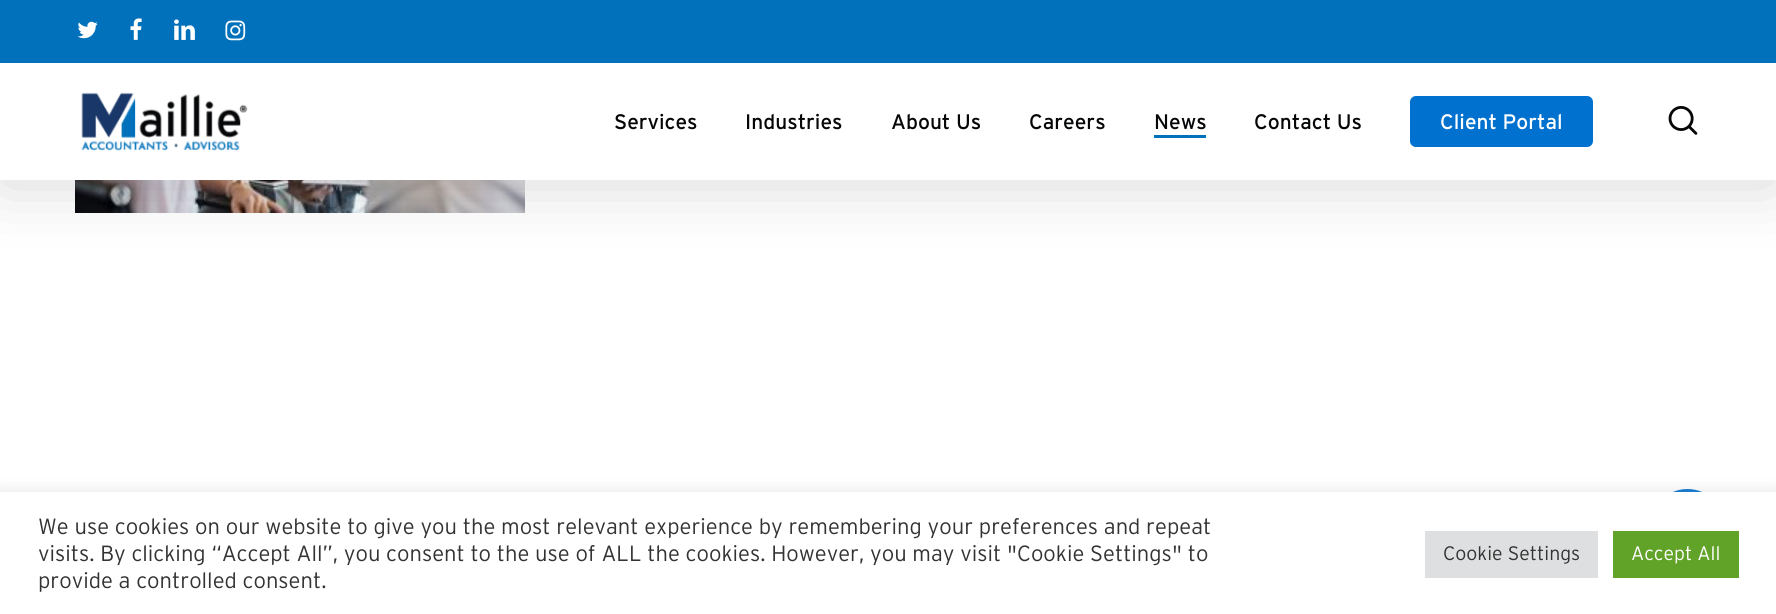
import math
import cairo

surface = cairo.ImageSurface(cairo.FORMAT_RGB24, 1776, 614)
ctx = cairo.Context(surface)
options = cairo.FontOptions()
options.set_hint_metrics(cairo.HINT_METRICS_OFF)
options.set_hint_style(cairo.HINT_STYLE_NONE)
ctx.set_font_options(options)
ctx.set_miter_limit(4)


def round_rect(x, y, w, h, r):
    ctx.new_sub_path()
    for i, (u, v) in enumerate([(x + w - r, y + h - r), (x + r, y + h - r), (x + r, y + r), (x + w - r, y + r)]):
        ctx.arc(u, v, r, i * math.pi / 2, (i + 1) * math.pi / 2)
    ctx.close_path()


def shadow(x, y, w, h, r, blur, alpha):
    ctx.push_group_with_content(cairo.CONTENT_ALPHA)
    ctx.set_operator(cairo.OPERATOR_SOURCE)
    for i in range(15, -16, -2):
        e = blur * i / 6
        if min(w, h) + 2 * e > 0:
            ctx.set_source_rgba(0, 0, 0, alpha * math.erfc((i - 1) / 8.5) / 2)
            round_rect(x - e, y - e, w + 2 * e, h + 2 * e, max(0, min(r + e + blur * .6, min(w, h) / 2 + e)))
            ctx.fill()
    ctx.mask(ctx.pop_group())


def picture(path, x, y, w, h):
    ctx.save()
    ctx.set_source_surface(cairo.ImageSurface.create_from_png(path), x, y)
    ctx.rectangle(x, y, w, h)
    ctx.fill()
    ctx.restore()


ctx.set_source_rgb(1, 1, 1)
ctx.paint()
picture("img7.png", 75, 180, 450, 33)
ctx.set_source_rgb(0, 0, 0)
shadow(0, 5, 1776, 180, 0, 34, 0.15)
ctx.set_source_rgb(1, 1, 1)
ctx.rectangle(0, 63, 1776, 117)
ctx.fill()
ctx.set_source_rgb(0, 0.443, 0.729)
ctx.rectangle(0, 0, 1776, 63)
ctx.fill()
picture("img1.png", 77, 21, 21, 18)
picture("img2.png", 130, 18, 12, 22)
picture("img3.png", 174, 19, 21, 21)
picture("img4.png", 225, 20, 21, 21)
picture("img5.png", 81, 92, 167, 59)
ctx.select_font_face("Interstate")
ctx.set_font_size(21)
ctx.set_source_rgb(0.02, 0.027, 0.031)
ctx.move_to(614, 129)
ctx.show_text("Services")
ctx.move_to(745, 129)
ctx.show_text("Industries")
ctx.move_to(891, 129)
ctx.show_text("About Us")
ctx.move_to(1029, 129)
ctx.show_text("Careers")
ctx.move_to(1154, 129)
ctx.show_text("News")
ctx.set_source_rgb(0, 0.443, 0.729)
ctx.rectangle(1154, 135, 52, 3)
ctx.fill()
ctx.set_source_rgb(0.02, 0.027, 0.031)
ctx.move_to(1254, 129)
ctx.show_text("Contact Us")
ctx.set_source_rgb(0, 0.443, 0.808)
round_rect(1410, 96, 183, 51, 6)
ctx.fill()
ctx.set_source_rgb(1, 1, 1)
ctx.move_to(1440, 129)
ctx.show_text("Client Portal")
picture("img6.png", 1668, 106, 30, 29)
ctx.set_source_rgb(0, 0.443, 0.808)
ctx.arc(1687.5, 526.5, 37.5, 0, 2 * math.pi)
ctx.fill()
ctx.set_source_rgb(0.675, 0.671, 0.671)
shadow(0, 491, 1776, 123, 0, 7.5, 0.3)
ctx.set_source_rgb(1, 1, 1)
ctx.rectangle(0, 492, 1776, 122)
ctx.fill()
ctx.select_font_face("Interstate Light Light")
ctx.set_font_size(22)
ctx.set_source_rgb(0.2, 0.2, 0.2)
ctx.move_to(38, 534)
ctx.show_text("We use cookies on our website to give you the most relevant experience by remembering your preferences and repeat")
ctx.move_to(38, 561)
ctx.show_text("visits. By clicking “Accept All”, you consent to the use of ALL the cookies. However, you may visit \"Cookie Settings\" to")
ctx.move_to(38, 588)
ctx.show_text("provide a controlled consent.")
ctx.set_source_rgb(0.871, 0.875, 0.878)
ctx.rectangle(1425, 531, 173, 47)
ctx.fill()
ctx.set_font_size(19.5)
ctx.set_source_rgb(0.2, 0.2, 0.2)
ctx.move_to(1443, 560)
ctx.show_text("Cookie Settings")
ctx.set_source_rgb(0.38, 0.635, 0.161)
ctx.rectangle(1613, 531, 126, 47)
ctx.fill()
ctx.set_source_rgb(1, 1, 1)
ctx.move_to(1631, 560)
ctx.show_text("Accept All")
surface.write_to_png("page.png")
